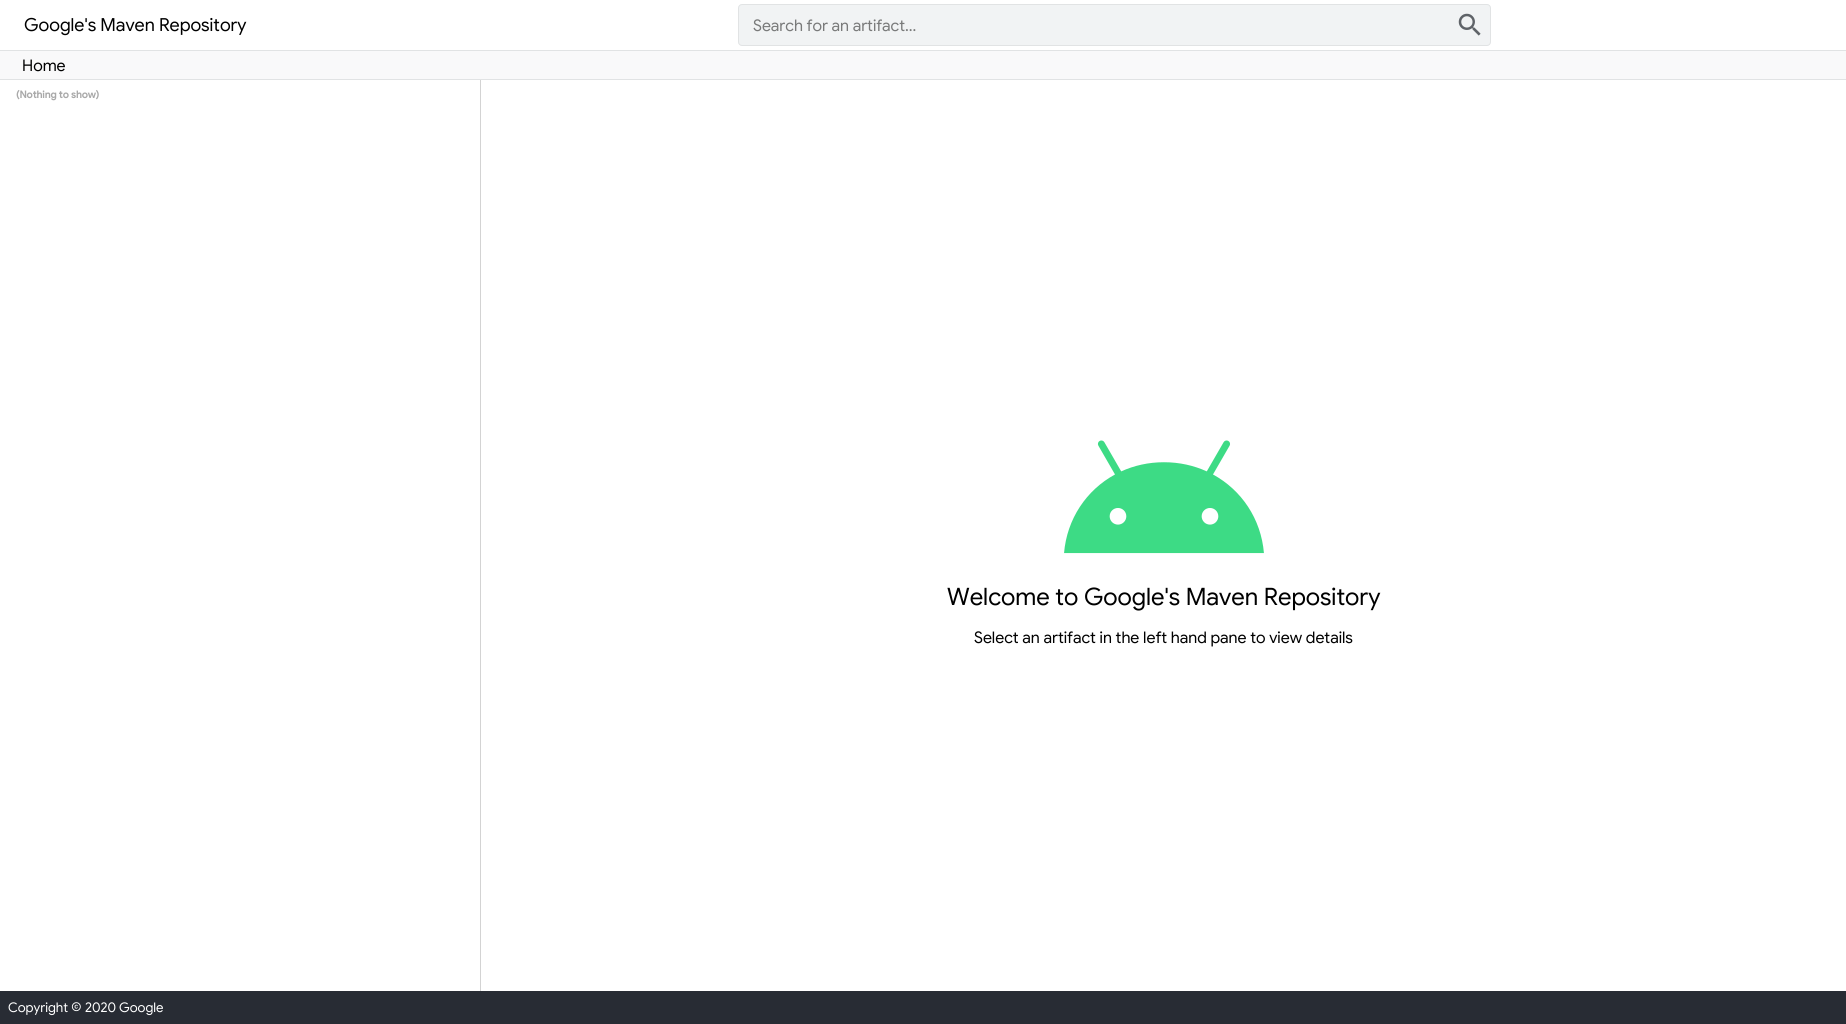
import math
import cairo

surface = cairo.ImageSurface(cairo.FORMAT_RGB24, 1846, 1024)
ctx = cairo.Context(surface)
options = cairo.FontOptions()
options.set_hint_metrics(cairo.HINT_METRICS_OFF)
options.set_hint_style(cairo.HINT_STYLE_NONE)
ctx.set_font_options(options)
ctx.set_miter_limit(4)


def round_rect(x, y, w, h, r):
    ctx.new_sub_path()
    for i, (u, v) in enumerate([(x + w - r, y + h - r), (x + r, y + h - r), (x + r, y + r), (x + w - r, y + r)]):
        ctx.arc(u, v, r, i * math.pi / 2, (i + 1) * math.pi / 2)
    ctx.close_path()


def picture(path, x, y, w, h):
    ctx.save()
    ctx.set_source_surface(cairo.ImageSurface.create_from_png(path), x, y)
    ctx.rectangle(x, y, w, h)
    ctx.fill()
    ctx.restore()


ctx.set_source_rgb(1, 1, 1)
ctx.paint()
ctx.select_font_face("Google Sans")
ctx.set_font_size(18)
ctx.set_source_rgb(0, 0, 0)
ctx.move_to(24, 31)
ctx.show_text("Google's Maven Repository")
ctx.set_source_rgb(0.945, 0.953, 0.957)
round_rect(738.5, 4.5, 752, 41, 3.5)
ctx.fill_preserve()
ctx.set_source_rgb(0.882, 0.89, 0.894)
ctx.set_line_width(1)
ctx.stroke()
ctx.set_font_size(16)
ctx.set_source_rgb(0.475, 0.478, 0.478)
ctx.move_to(753, 31)
ctx.show_text("Search for an artifact...")
picture("img1.png", 1458, 13, 23, 23)
ctx.set_source_rgb(0.973, 0.976, 0.98)
ctx.rectangle(0, 51, 1846, 28)
ctx.fill()
ctx.set_source_rgb(0.882, 0.89, 0.894)
ctx.rectangle(0, 50, 1846, 1)
ctx.fill()
ctx.rectangle(0, 79, 1846, 1)
ctx.fill()
ctx.set_source_rgb(0, 0, 0)
ctx.move_to(22, 71)
ctx.show_text("Home")
ctx.set_source_rgb(0.827, 0.827, 0.827)
ctx.rectangle(480, 80, 1, 911)
ctx.fill()
ctx.select_font_face("Google Sans", cairo.FONT_SLANT_NORMAL, cairo.FONT_WEIGHT_BOLD)
ctx.set_font_size(10)
ctx.set_source_rgb(0.663, 0.663, 0.663)
ctx.move_to(16, 98)
ctx.show_text("(Nothing to show)")
picture("img2.png", 1064, 440, 200, 114)
ctx.select_font_face("Google Sans")
ctx.set_font_size(24)
ctx.set_source_rgb(0, 0, 0)
ctx.move_to(947, 605)
ctx.show_text("Welcome to Google's Maven Repository")
ctx.set_font_size(16)
ctx.move_to(974, 643)
ctx.show_text("Select an artifact in the left hand pane to view details")
ctx.set_source_rgb(0.157, 0.173, 0.204)
ctx.rectangle(0, 991, 1846, 33)
ctx.fill()
ctx.set_font_size(13.25)
ctx.set_source_rgb(1, 1, 1)
ctx.move_to(8, 1012)
ctx.show_text("Copyright")
picture("img3.png", 71, 1002, 10, 10)
ctx.move_to(85, 1012)
ctx.show_text("2020 Google")
surface.write_to_png("page.png")
